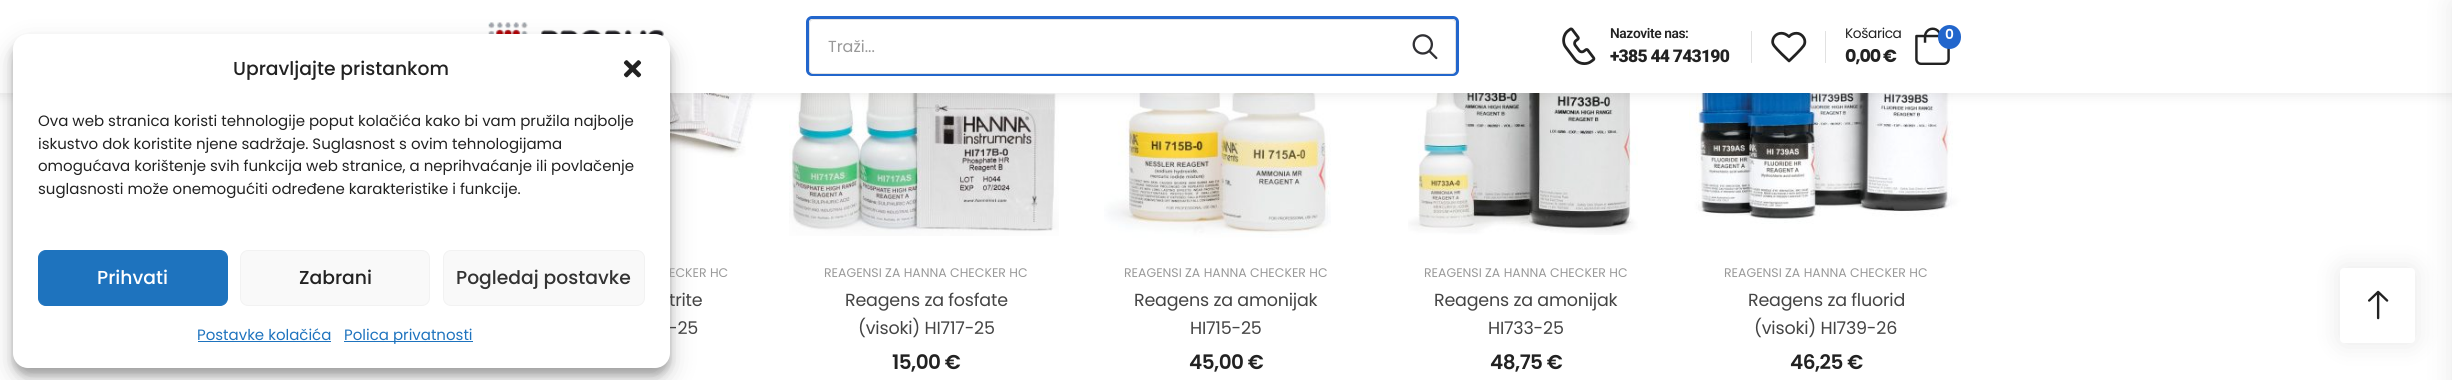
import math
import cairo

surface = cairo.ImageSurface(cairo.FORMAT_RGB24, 2452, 380)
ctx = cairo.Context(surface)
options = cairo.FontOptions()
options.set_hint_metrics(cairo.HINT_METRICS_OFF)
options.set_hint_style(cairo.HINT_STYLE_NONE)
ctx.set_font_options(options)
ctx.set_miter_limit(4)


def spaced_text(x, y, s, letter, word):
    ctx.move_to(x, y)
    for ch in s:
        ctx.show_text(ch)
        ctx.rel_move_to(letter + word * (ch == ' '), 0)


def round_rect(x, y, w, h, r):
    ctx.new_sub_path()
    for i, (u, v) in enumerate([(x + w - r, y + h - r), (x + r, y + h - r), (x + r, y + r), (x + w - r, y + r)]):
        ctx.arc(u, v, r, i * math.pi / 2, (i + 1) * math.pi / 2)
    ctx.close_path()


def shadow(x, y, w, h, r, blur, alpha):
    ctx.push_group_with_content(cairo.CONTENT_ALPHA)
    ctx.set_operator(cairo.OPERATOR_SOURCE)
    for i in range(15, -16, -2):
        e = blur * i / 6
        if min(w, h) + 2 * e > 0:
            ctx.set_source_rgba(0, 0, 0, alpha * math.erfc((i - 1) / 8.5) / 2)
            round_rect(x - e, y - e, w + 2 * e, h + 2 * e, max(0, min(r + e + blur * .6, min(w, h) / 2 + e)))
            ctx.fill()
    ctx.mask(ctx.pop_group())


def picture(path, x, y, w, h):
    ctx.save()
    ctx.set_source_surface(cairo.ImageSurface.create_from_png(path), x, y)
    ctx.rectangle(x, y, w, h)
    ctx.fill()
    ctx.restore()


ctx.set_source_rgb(1, 1, 1)
ctx.paint()
picture("img7.png", 670, 93, 90, 82)
picture("img8.png", 789, 93, 270, 143)
picture("img9.png", 1104, 93, 227, 145)
picture("img10.png", 1408, 93, 230, 142)
picture("img11.png", 1689, 93, 275, 131)
ctx.set_source_rgb(0, 0, 0)
shadow(-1, -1, 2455, 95, 0, 6, 0.1)
ctx.set_source_rgb(1, 1, 1)
ctx.rectangle(0, 0, 2452, 93)
ctx.fill()
picture("img2.png", 488, 22, 176, 15)
ctx.set_source_rgb(0, 0, 0)
shadow(13, 41, 657, 334, 15, 4, 0.23)
shadow(13, 46, 657, 334, 15, 12.5, 0.19)
ctx.select_font_face("Poppins")
ctx.set_font_size(12.5)
ctx.set_source_rgb(0.6, 0.6, 0.6)
ctx.move_to(669, 277)
ctx.show_text("ECKER HC")
ctx.set_font_size(17.5)
ctx.set_source_rgb(0.267, 0.267, 0.267)
spaced_text(669, 306, "trite", -0.2, 0)
spaced_text(668, 334, "-25", -0.2, 0)
ctx.set_source_rgb(1, 1, 1)
round_rect(13, 34, 657, 334, 15)
ctx.fill()
ctx.select_font_face("Poppins Medium")
ctx.set_font_size(18.75)
ctx.set_source_rgb(0.133, 0.133, 0.133)
ctx.move_to(233, 75)
ctx.show_text("Upravljajte pristankom")
picture("img1.png", 623, 60, 19, 18)
ctx.select_font_face("Poppins")
ctx.set_font_size(15)
ctx.move_to(38, 126)
ctx.show_text("Ova web stranica koristi tehnologije poput kolačića kako bi vam pružila najbolje")
ctx.move_to(38, 149)
ctx.show_text("iskustvo dok koristite njene sadržaje. Suglasnost s ovim tehnologijama")
ctx.move_to(38, 171)
ctx.show_text("omogućava korištenje svih funkcija web stranice, a neprihvaćanje ili povlačenje")
ctx.move_to(38, 194)
ctx.show_text("suglasnosti može onemogućiti određene karakteristike i funkcije.")
ctx.set_source_rgb(0.118, 0.451, 0.745)
round_rect(38.5, 250.5, 189, 55, 7.5)
ctx.fill_preserve()
ctx.set_line_width(1)
ctx.stroke()
ctx.select_font_face("Poppins Medium")
ctx.set_font_size(18.75)
ctx.set_source_rgb(1, 1, 1)
ctx.move_to(97, 284)
ctx.show_text("Prihvati")
ctx.set_source_rgb(0.976, 0.976, 0.976)
round_rect(240.5, 250.5, 189, 55, 7.5)
ctx.fill_preserve()
ctx.set_source_rgb(0.949, 0.949, 0.949)
ctx.stroke()
ctx.set_source_rgb(0.133, 0.133, 0.133)
ctx.move_to(299, 284)
ctx.show_text("Zabrani")
ctx.set_source_rgb(0.976, 0.976, 0.976)
round_rect(443.5, 250.5, 201, 55, 7.5)
ctx.fill_preserve()
ctx.set_source_rgb(0.949, 0.949, 0.949)
ctx.stroke()
ctx.set_source_rgb(0.2, 0.2, 0.2)
ctx.move_to(456, 284)
ctx.show_text("Pogledaj postavke")
ctx.select_font_face("Poppins")
ctx.set_font_size(15)
ctx.set_source_rgb(0.118, 0.451, 0.745)
ctx.move_to(197, 340)
ctx.show_text("Postavke kolačića")
ctx.rectangle(198, 341, 133, 1)
ctx.fill()
ctx.rectangle(344, 341, 129, 1)
ctx.fill()
ctx.move_to(344, 340)
ctx.show_text("Polica privatnosti")
round_rect(807.5, 17.5, 650, 57, 4.5)
ctx.set_source_rgb(0.133, 0.4, 0.8)
ctx.set_line_width(3)
ctx.stroke()
ctx.set_source_rgb(1, 1, 1)
round_rect(809.5, 19.5, 646, 54, 3.5)
ctx.fill_preserve()
ctx.set_source_rgb(0.882, 0.882, 0.882)
ctx.set_line_width(1)
ctx.stroke()
ctx.set_font_size(16)
ctx.set_source_rgb(0.6, 0.6, 0.6)
ctx.move_to(828, 52)
ctx.show_text("Traži...")
picture("img3.png", 1412, 34, 26, 26)
picture("img4.png", 1562, 27, 34, 38)
ctx.select_font_face("Roboto SemiBold")
ctx.set_font_size(13.75)
ctx.set_source_rgb(0.133, 0.133, 0.133)
spaced_text(1610, 38, "Nazovite nas:", -0.4, 0)
ctx.select_font_face("Roboto Black")
ctx.set_font_size(17.5)
spaced_text(1610, 62, "+385 44 743190", -0.75, 0)
ctx.set_source_rgb(0.882, 0.882, 0.882)
ctx.rectangle(1751, 31, 1, 32)
ctx.fill()
picture("img5.png", 1771, 31, 36, 32)
ctx.rectangle(1825, 31, 1, 32)
ctx.fill()
ctx.select_font_face("Poppins")
ctx.set_font_size(13.75)
ctx.set_source_rgb(0.133, 0.133, 0.133)
spaced_text(1845, 38, "Košarica", -0.4, 0)
ctx.select_font_face("Poppins", cairo.FONT_SLANT_NORMAL, cairo.FONT_WEIGHT_BOLD)
ctx.set_font_size(17.5)
spaced_text(1845, 62, "0,00 €", -1, 0)
picture("img6.png", 1915, 27, 35, 38)
ctx.set_source_rgb(0.133, 0.4, 0.8)
round_rect(1938, 25, 23, 24, 11.5)
ctx.fill()
ctx.select_font_face("Poppins SemiBold")
ctx.set_font_size(13.75)
ctx.set_source_rgb(1, 1, 1)
spaced_text(1945, 39, "0", -0.4, 0)
ctx.set_source_rgb(0, 0, 0)
shadow(2340, 268, 75, 75, 4, 12.5, 0.1)
ctx.set_source_rgb(1, 1, 1)
round_rect(2340, 268, 75, 75, 4)
ctx.fill()
ctx.set_source_rgb(0, 0, 0)
shadow(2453, 3, 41, 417, 0, 14, 0.1)
ctx.select_font_face("Poppins")
ctx.set_font_size(12.5)
ctx.set_source_rgb(0.6, 0.6, 0.6)
ctx.move_to(824, 277)
ctx.show_text("REAGENSI ZA HANNA CHECKER HC")
ctx.set_font_size(17.5)
ctx.set_source_rgb(0.267, 0.267, 0.267)
spaced_text(845, 306, "Reagens za fosfate", -0.2, 0)
spaced_text(858, 334, "(visoki) HI717-25", -0.2, 0)
ctx.select_font_face("Poppins SemiBold")
ctx.set_font_size(20)
ctx.set_source_rgb(0.133, 0.133, 0.133)
spaced_text(892, 369, "15,00 €", -0.5, 0)
ctx.select_font_face("Poppins")
ctx.set_font_size(12.5)
ctx.set_source_rgb(0.6, 0.6, 0.6)
ctx.move_to(1124, 277)
ctx.show_text("REAGENSI ZA HANNA CHECKER HC")
ctx.set_font_size(17.5)
ctx.set_source_rgb(0.267, 0.267, 0.267)
spaced_text(1134, 306, "Reagens za amonijak", -0.2, 0)
spaced_text(1190, 334, "HI715-25", -0.2, 0)
ctx.select_font_face("Poppins SemiBold")
ctx.set_font_size(20)
ctx.set_source_rgb(0.133, 0.133, 0.133)
spaced_text(1189, 369, "45,00 €", -0.5, 0)
ctx.select_font_face("Poppins")
ctx.set_font_size(12.5)
ctx.set_source_rgb(0.6, 0.6, 0.6)
ctx.move_to(1424, 277)
ctx.show_text("REAGENSI ZA HANNA CHECKER HC")
ctx.set_font_size(17.5)
ctx.set_source_rgb(0.267, 0.267, 0.267)
spaced_text(1434, 306, "Reagens za amonijak", -0.2, 0)
spaced_text(1488, 334, "HI733-25", -0.2, 0)
ctx.select_font_face("Poppins SemiBold")
ctx.set_font_size(20)
ctx.set_source_rgb(0.133, 0.133, 0.133)
spaced_text(1490, 369, "48,75 €", -0.5, 0)
ctx.select_font_face("Poppins")
ctx.set_font_size(12.5)
ctx.set_source_rgb(0.6, 0.6, 0.6)
ctx.move_to(1724, 277)
ctx.show_text("REAGENSI ZA HANNA CHECKER HC")
ctx.set_font_size(17.5)
ctx.set_source_rgb(0.267, 0.267, 0.267)
spaced_text(1748, 306, "Reagens za fluorid", -0.2, 0)
spaced_text(1754, 334, "(visoki) HI739-26", -0.2, 0)
ctx.select_font_face("Poppins SemiBold")
ctx.set_font_size(20)
ctx.set_source_rgb(0.133, 0.133, 0.133)
spaced_text(1790, 369, "46,25 €", -0.5, 0)
picture("img12.png", 2368, 290, 21, 30)
surface.write_to_png("page.png")
